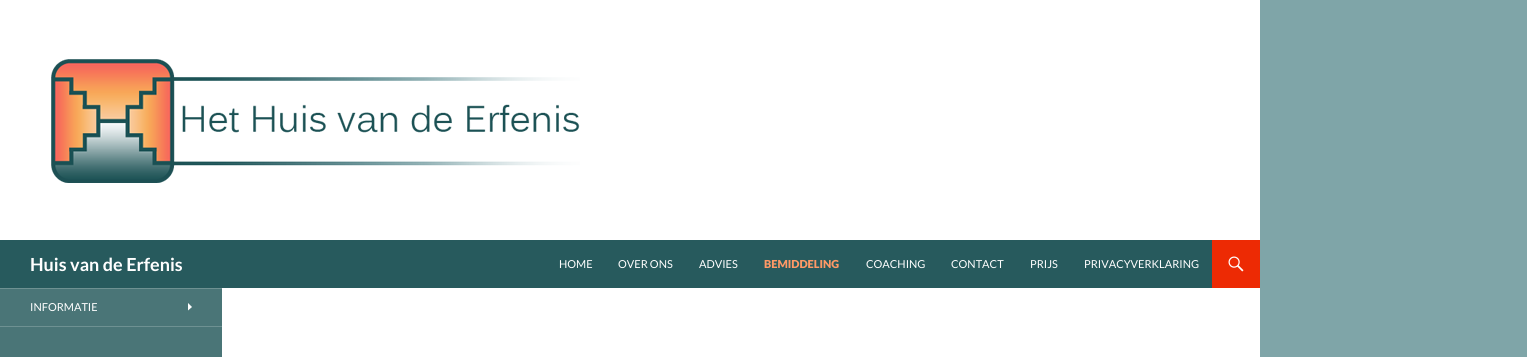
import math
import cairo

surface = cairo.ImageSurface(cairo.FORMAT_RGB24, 1527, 357)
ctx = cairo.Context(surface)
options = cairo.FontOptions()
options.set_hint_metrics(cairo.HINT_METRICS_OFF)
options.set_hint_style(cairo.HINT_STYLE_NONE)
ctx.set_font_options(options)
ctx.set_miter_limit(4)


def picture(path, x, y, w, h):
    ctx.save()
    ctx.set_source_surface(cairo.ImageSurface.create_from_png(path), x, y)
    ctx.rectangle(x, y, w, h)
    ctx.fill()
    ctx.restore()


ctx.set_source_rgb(0.498, 0.647, 0.659)
ctx.paint()
ctx.set_source_rgb(1, 1, 1)
ctx.rectangle(222, 0, 1038, 357)
ctx.fill()
picture("img1.png", 0, 0, 580, 240)
ctx.set_source_rgb(0.153, 0.353, 0.365)
ctx.rectangle(0, 240, 1212, 48)
ctx.fill()
ctx.select_font_face("Lato", cairo.FONT_SLANT_NORMAL, cairo.FONT_WEIGHT_BOLD)
ctx.set_font_size(18)
ctx.set_source_rgb(1, 1, 1)
ctx.move_to(30, 271)
ctx.show_text("Huis van de Erfenis")
ctx.select_font_face("Lato")
ctx.set_font_size(11)
ctx.move_to(559, 268)
ctx.show_text("HOME")
ctx.move_to(618, 268)
ctx.show_text("OVER ONS")
ctx.move_to(699, 268)
ctx.show_text("ADVIES")
ctx.select_font_face("Lato Black")
ctx.set_source_rgb(1, 0.6, 0.4)
ctx.move_to(764, 268)
ctx.show_text("BEMIDDELING")
ctx.select_font_face("Lato")
ctx.set_source_rgb(1, 1, 1)
ctx.move_to(866, 268)
ctx.show_text("COACHING")
ctx.move_to(951, 268)
ctx.show_text("CONTACT")
ctx.move_to(1030, 268)
ctx.show_text("PRIJS")
ctx.move_to(1084, 268)
ctx.show_text("PRIVACYVERKLARING")
ctx.set_source_rgb(0.929, 0.165, 0.016)
ctx.rectangle(1212, 240, 48, 48)
ctx.fill()
picture("img2.png", 1228, 256, 16, 16)
ctx.set_source_rgb(0.29, 0.459, 0.467)
ctx.rectangle(0, 289, 222, 68)
ctx.fill()
ctx.set_source_rgb(0.431, 0.569, 0.573)
ctx.rectangle(0, 326, 222, 1)
ctx.fill()
ctx.rectangle(0, 288, 222, 1)
ctx.fill()
ctx.set_source_rgb(1, 1, 1)
ctx.move_to(30, 311)
ctx.show_text("INFORMATIE")
ctx.new_path()
ctx.move_to(188, 310.5)
ctx.line_to(192, 307)
ctx.line_to(188, 303)
ctx.close_path()
ctx.fill()
surface.write_to_png("page.png")
